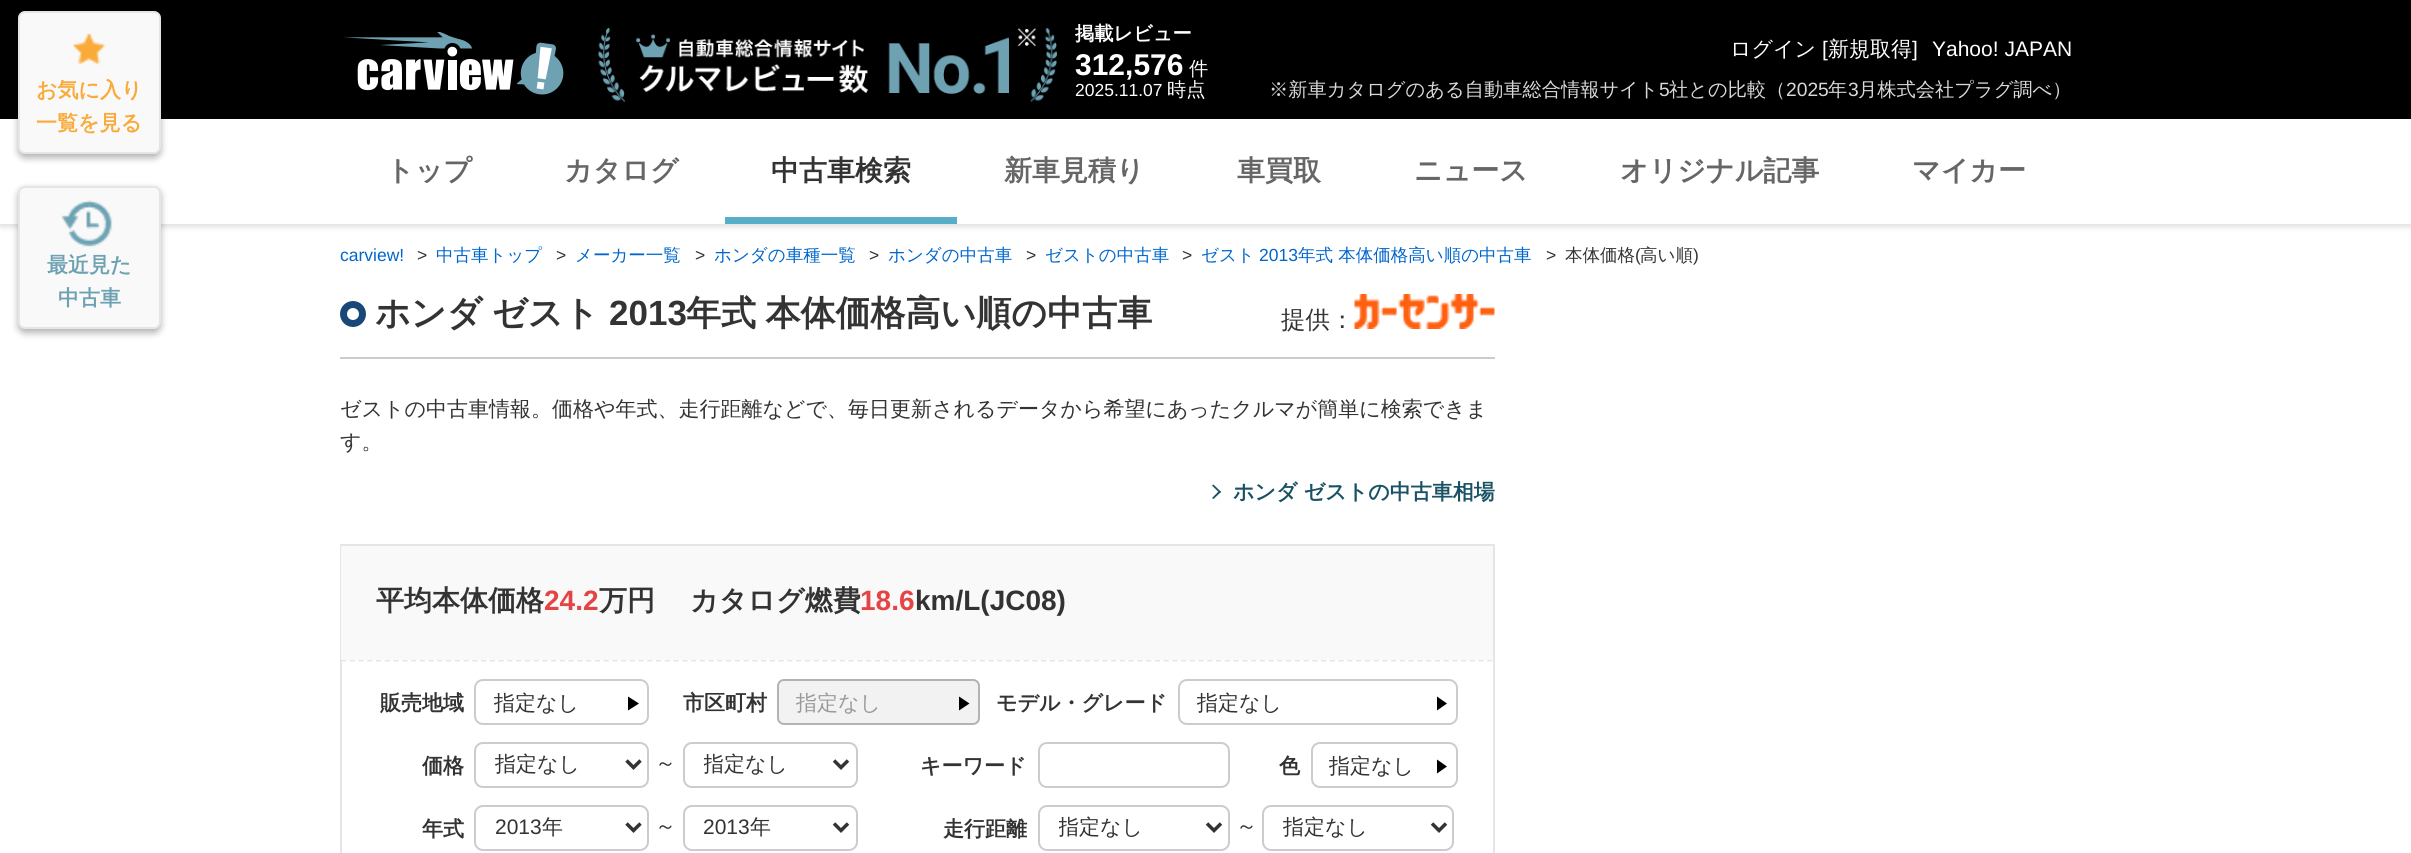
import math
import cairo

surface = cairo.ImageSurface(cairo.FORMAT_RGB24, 2411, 853)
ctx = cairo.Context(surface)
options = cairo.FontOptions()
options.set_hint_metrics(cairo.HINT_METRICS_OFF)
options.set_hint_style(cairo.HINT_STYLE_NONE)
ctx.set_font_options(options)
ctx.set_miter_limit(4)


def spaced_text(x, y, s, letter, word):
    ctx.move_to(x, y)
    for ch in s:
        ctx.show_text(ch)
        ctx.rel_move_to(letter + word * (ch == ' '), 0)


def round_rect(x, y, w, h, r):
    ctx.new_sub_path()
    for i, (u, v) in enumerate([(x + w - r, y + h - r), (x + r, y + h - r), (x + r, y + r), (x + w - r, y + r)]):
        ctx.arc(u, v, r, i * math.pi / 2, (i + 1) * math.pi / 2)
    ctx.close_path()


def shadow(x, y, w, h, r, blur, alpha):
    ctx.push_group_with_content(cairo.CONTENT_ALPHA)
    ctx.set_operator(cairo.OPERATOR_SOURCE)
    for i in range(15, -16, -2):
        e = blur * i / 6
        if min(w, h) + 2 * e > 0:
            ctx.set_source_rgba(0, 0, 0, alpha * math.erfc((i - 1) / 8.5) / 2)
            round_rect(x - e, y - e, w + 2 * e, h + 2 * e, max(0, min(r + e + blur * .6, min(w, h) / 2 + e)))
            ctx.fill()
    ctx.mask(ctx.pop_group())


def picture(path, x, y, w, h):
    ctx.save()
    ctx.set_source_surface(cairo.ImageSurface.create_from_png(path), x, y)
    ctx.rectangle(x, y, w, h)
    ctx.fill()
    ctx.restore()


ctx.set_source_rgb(1, 1, 1)
ctx.paint()
ctx.set_source_rgb(0, 0, 0)
ctx.rectangle(0, 0, 2411, 119)
ctx.fill()
picture("img1.png", 344, 32, 220, 63)
ctx.select_font_face("WenQuanYi Zen Hei", cairo.FONT_SLANT_NORMAL, cairo.FONT_WEIGHT_BOLD)
ctx.set_font_size(19.25)
ctx.set_source_rgb(1, 1, 1)
ctx.move_to(1075, 40)
ctx.show_text("掲載レビュー")
ctx.select_font_face("Liberation Sans", cairo.FONT_SLANT_NORMAL, cairo.FONT_WEIGHT_BOLD)
ctx.set_font_size(30)
ctx.move_to(1075, 75)
ctx.show_text("312,576")
ctx.select_font_face("WenQuanYi Zen Hei Medium")
ctx.set_font_size(19.25)
ctx.move_to(1189, 75)
ctx.show_text("件")
ctx.select_font_face("Liberation Sans")
ctx.set_font_size(17.5)
ctx.move_to(1075, 96)
ctx.show_text("2025.11.07")
ctx.select_font_face("WenQuanYi Zen Hei Medium")
ctx.set_font_size(19.25)
ctx.move_to(1167, 96)
ctx.show_text("時点")
ctx.set_font_size(21)
ctx.move_to(1730, 56)
ctx.show_text("ログイン")
ctx.select_font_face("Liberation Sans")
ctx.move_to(1822, 56)
ctx.show_text("[")
ctx.select_font_face("WenQuanYi Zen Hei Medium")
ctx.move_to(1828, 56)
ctx.show_text("新規取得")
ctx.select_font_face("Liberation Sans")
ctx.move_to(1912, 56)
ctx.show_text("]")
ctx.move_to(1932, 56)
ctx.show_text("Yahoo! JAPAN")
picture("img2.png", 598, 28, 459, 74)
ctx.select_font_face("WenQuanYi Zen Hei Medium")
ctx.set_font_size(19.25)
ctx.set_source_rgb(0.851, 0.851, 0.851)
ctx.move_to(1269, 96)
ctx.show_text("※新車カタログのある自動車総合情報サイト")
ctx.select_font_face("Liberation Sans")
ctx.move_to(1659, 96)
ctx.show_text("5")
ctx.select_font_face("WenQuanYi Zen Hei Medium")
ctx.move_to(1669, 96)
ctx.show_text("社との比較（")
ctx.select_font_face("Liberation Sans")
ctx.move_to(1786, 96)
ctx.show_text("2025")
ctx.select_font_face("WenQuanYi Zen Hei Medium")
ctx.move_to(1828, 96)
ctx.show_text("年")
ctx.select_font_face("Liberation Sans")
ctx.move_to(1848, 96)
ctx.show_text("3")
ctx.select_font_face("WenQuanYi Zen Hei Medium")
ctx.move_to(1858, 96)
ctx.show_text("月株式会社プラグ調べ）")
ctx.save()
ctx.set_fill_rule(cairo.FILL_RULE_EVEN_ODD)
ctx.new_path()
ctx.move_to(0, 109)
ctx.line_to(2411, 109)
ctx.line_to(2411, 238)
ctx.line_to(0, 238)
ctx.close_path()
ctx.move_to(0, 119)
ctx.line_to(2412, 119)
ctx.line_to(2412, 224)
ctx.line_to(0, 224)
ctx.close_path()
ctx.clip()
ctx.set_source_rgb(0, 0, 0)
shadow(0, 121, 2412, 105, 0, 3.5, 0.16)
ctx.restore()
ctx.select_font_face("WenQuanYi Zen Hei", cairo.FONT_SLANT_NORMAL, cairo.FONT_WEIGHT_BOLD)
ctx.set_font_size(28)
ctx.set_source_rgb(0.4, 0.4, 0.4)
ctx.move_to(386, 180)
ctx.show_text("トップ")
ctx.move_to(564, 180)
ctx.show_text("カタログ")
ctx.set_source_rgb(0.345, 0.678, 0.78)
ctx.rectangle(725, 217, 232, 7)
ctx.fill()
ctx.set_source_rgb(0.2, 0.2, 0.2)
ctx.move_to(771, 180)
ctx.show_text("中古車検索")
ctx.set_source_rgb(0.4, 0.4, 0.4)
ctx.move_to(1004, 180)
ctx.show_text("新車見積り")
ctx.move_to(1237, 180)
ctx.show_text("車買取")
ctx.move_to(1414, 180)
ctx.show_text("ニュース")
ctx.move_to(1620, 180)
ctx.show_text("オリジナル記事")
ctx.move_to(1912, 180)
ctx.show_text("マイカー")
ctx.set_source_rgb(0, 0, 0)
shadow(18, 14, 143, 144, 7, 3.5, 0.3)
ctx.set_source_rgb(0.973, 0.973, 0.973)
round_rect(19, 12, 141, 141, 6)
ctx.fill_preserve()
ctx.set_source_rgb(0.898, 0.898, 0.898)
ctx.stroke()
picture("img3.png", 73, 33, 33, 32)
ctx.set_font_size(21)
ctx.set_source_rgb(0.976, 0.667, 0.22)
ctx.move_to(36, 97)
ctx.show_text("お気に入り")
ctx.move_to(36, 130)
ctx.show_text("一覧を見る")
ctx.set_source_rgb(0, 0, 0)
shadow(18, 189, 143, 144, 7, 3.5, 0.3)
ctx.set_source_rgb(0.973, 0.973, 0.973)
round_rect(19, 187, 141, 141, 6)
ctx.fill_preserve()
ctx.set_source_rgb(0.898, 0.898, 0.898)
ctx.stroke()
picture("img4.png", 61, 200, 52, 47)
ctx.set_source_rgb(0.431, 0.635, 0.698)
ctx.move_to(47, 272)
ctx.show_text("最近見た")
ctx.move_to(58, 305)
ctx.show_text("中古車")
ctx.select_font_face("Liberation Sans")
ctx.set_font_size(17.5)
ctx.set_source_rgb(0, 0.4, 0.8)
ctx.move_to(340, 261)
ctx.show_text("carview!")
ctx.set_source_rgb(0.2, 0.2, 0.2)
ctx.move_to(417, 261)
ctx.show_text(">")
ctx.select_font_face("WenQuanYi Zen Hei Medium")
ctx.set_source_rgb(0, 0.4, 0.8)
ctx.move_to(436, 261)
ctx.show_text("中古車トップ")
ctx.select_font_face("Liberation Sans")
ctx.set_source_rgb(0.2, 0.2, 0.2)
ctx.move_to(556, 261)
ctx.show_text(">")
ctx.select_font_face("WenQuanYi Zen Hei Medium")
ctx.set_source_rgb(0, 0.4, 0.8)
ctx.move_to(575, 261)
ctx.show_text("メーカー一覧")
ctx.select_font_face("Liberation Sans")
ctx.set_source_rgb(0.2, 0.2, 0.2)
ctx.move_to(695, 261)
ctx.show_text(">")
ctx.select_font_face("WenQuanYi Zen Hei Medium")
ctx.set_source_rgb(0, 0.4, 0.8)
ctx.move_to(714, 261)
ctx.show_text("ホンダの車種一覧")
ctx.select_font_face("Liberation Sans")
ctx.set_source_rgb(0.2, 0.2, 0.2)
ctx.move_to(869, 261)
ctx.show_text(">")
ctx.select_font_face("WenQuanYi Zen Hei Medium")
ctx.set_source_rgb(0, 0.4, 0.8)
ctx.move_to(888, 261)
ctx.show_text("ホンダの中古車")
ctx.select_font_face("Liberation Sans")
ctx.set_source_rgb(0.2, 0.2, 0.2)
ctx.move_to(1026, 261)
ctx.show_text(">")
ctx.select_font_face("WenQuanYi Zen Hei Medium")
ctx.set_source_rgb(0, 0.4, 0.8)
ctx.move_to(1045, 261)
ctx.show_text("ゼストの中古車")
ctx.select_font_face("Liberation Sans")
ctx.set_source_rgb(0.2, 0.2, 0.2)
ctx.move_to(1182, 261)
ctx.show_text(">")
ctx.select_font_face("WenQuanYi Zen Hei Medium")
ctx.set_source_rgb(0, 0.4, 0.8)
ctx.move_to(1201, 261)
ctx.show_text("ゼスト")
ctx.select_font_face("Liberation Sans")
ctx.move_to(1259, 261)
ctx.show_text("2013")
ctx.select_font_face("WenQuanYi Zen Hei Medium")
ctx.move_to(1298, 261)
ctx.show_text("年式 本体価格高い順の中古車")
ctx.select_font_face("Liberation Sans")
ctx.set_source_rgb(0.2, 0.2, 0.2)
ctx.move_to(1546, 261)
ctx.show_text(">")
ctx.select_font_face("WenQuanYi Zen Hei Medium")
ctx.move_to(1565, 261)
ctx.show_text("本体価格")
ctx.select_font_face("Liberation Sans")
ctx.move_to(1635, 261)
ctx.show_text("(")
ctx.select_font_face("WenQuanYi Zen Hei Medium")
ctx.move_to(1640, 261)
ctx.show_text("高い順")
ctx.select_font_face("Liberation Sans")
ctx.move_to(1693, 261)
ctx.show_text(")")
ctx.set_source_rgb(0.8, 0.8, 0.8)
ctx.rectangle(340, 357, 1155, 2)
ctx.fill()
ctx.arc(353, 314, 9.5, 0, 2 * math.pi)
ctx.set_source_rgb(0.098, 0.282, 0.471)
ctx.set_line_width(7)
ctx.stroke()
ctx.select_font_face("WenQuanYi Zen Hei", cairo.FONT_SLANT_NORMAL, cairo.FONT_WEIGHT_BOLD)
ctx.set_font_size(35)
ctx.set_source_rgb(0.2, 0.2, 0.2)
spaced_text(375, 325, "ホンダ ゼスト", 0, -1)
ctx.select_font_face("Liberation Sans", cairo.FONT_SLANT_NORMAL, cairo.FONT_WEIGHT_BOLD)
ctx.move_to(609, 325)
ctx.show_text("2013")
ctx.select_font_face("WenQuanYi Zen Hei", cairo.FONT_SLANT_NORMAL, cairo.FONT_WEIGHT_BOLD)
spaced_text(686, 325, "年式 本体価格高い順の中古車", 0, -1)
ctx.select_font_face("WenQuanYi Zen Hei Medium")
ctx.set_font_size(24.5)
ctx.move_to(1281, 328)
ctx.show_text("提供：")
picture("img5.png", 1354, 294, 141, 35)
ctx.set_font_size(21)
ctx.move_to(340, 416)
ctx.show_text("ゼストの中古車情報。価格や年式、走行距離などで、毎日更新されるデータから希望にあったクルマが簡単に検索できま")
ctx.move_to(340, 449)
ctx.show_text("す。")
ctx.set_source_rgb(0.098, 0.322, 0.392)
ctx.new_path()
ctx.move_to(1213.5, 484.5)
ctx.line_to(1221, 492)
ctx.line_to(1219.5, 493)
ctx.line_to(1212, 485.5)
ctx.close_path()
ctx.fill()
ctx.new_path()
ctx.move_to(1219.5, 490.5)
ctx.line_to(1221, 492)
ctx.line_to(1213.5, 499)
ctx.line_to(1212, 498)
ctx.close_path()
ctx.fill()
ctx.select_font_face("WenQuanYi Zen Hei", cairo.FONT_SLANT_NORMAL, cairo.FONT_WEIGHT_BOLD)
ctx.move_to(1233, 499)
ctx.show_text("ホンダ ゼストの中古車相場")
ctx.rectangle(341, 545, 1153, 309)
ctx.set_source_rgb(0.898, 0.898, 0.898)
ctx.set_line_width(2)
ctx.stroke()
ctx.new_path()
ctx.move_to(341, 660.5)
ctx.line_to(1493, 660.5)
ctx.set_line_width(1.8)
ctx.set_dash([5.25, 3.5])
ctx.stroke()
ctx.set_source_rgb(0.973, 0.973, 0.973)
ctx.rectangle(341, 546, 1152, 114)
ctx.fill()
ctx.set_font_size(28)
ctx.set_source_rgb(0.2, 0.2, 0.2)
ctx.move_to(376, 610)
ctx.show_text("平均本体価格")
ctx.select_font_face("Liberation Sans", cairo.FONT_SLANT_NORMAL, cairo.FONT_WEIGHT_BOLD)
ctx.set_source_rgb(0.898, 0.267, 0.267)
ctx.move_to(544, 610)
ctx.show_text("24.2")
ctx.select_font_face("WenQuanYi Zen Hei", cairo.FONT_SLANT_NORMAL, cairo.FONT_WEIGHT_BOLD)
ctx.set_source_rgb(0.2, 0.2, 0.2)
ctx.move_to(599, 610)
ctx.show_text("万円")
ctx.move_to(690, 610)
ctx.show_text("カタログ燃費")
ctx.select_font_face("Liberation Sans", cairo.FONT_SLANT_NORMAL, cairo.FONT_WEIGHT_BOLD)
ctx.set_source_rgb(0.898, 0.267, 0.267)
ctx.move_to(860, 610)
ctx.show_text("18.6")
ctx.set_source_rgb(0.2, 0.2, 0.2)
ctx.move_to(915, 610)
ctx.show_text("km/L(JC08)")
ctx.select_font_face("WenQuanYi Zen Hei", cairo.FONT_SLANT_NORMAL, cairo.FONT_WEIGHT_BOLD)
ctx.set_font_size(21)
ctx.move_to(380, 710)
ctx.show_text("販売地域")
round_rect(475, 680, 173, 44, 8)
ctx.set_source_rgb(0.8, 0.8, 0.8)
ctx.set_line_width(2)
ctx.set_dash([])
ctx.stroke()
ctx.select_font_face("WenQuanYi Zen Hei Medium")
ctx.set_source_rgb(0.2, 0.2, 0.2)
ctx.move_to(494, 710)
ctx.show_text("指定なし")
ctx.set_source_rgb(0, 0, 0)
ctx.new_path()
ctx.move_to(628, 710.5)
ctx.line_to(628, 696.5)
ctx.line_to(639, 703.5)
ctx.close_path()
ctx.fill()
ctx.select_font_face("WenQuanYi Zen Hei", cairo.FONT_SLANT_NORMAL, cairo.FONT_WEIGHT_BOLD)
ctx.set_source_rgb(0.2, 0.2, 0.2)
ctx.move_to(683, 710)
ctx.show_text("市区町村")
ctx.set_source_rgb(0.949, 0.949, 0.949)
round_rect(778, 680, 201, 44, 6)
ctx.fill_preserve()
ctx.set_source_rgb(0.702, 0.702, 0.702)
ctx.stroke()
ctx.select_font_face("WenQuanYi Zen Hei Medium")
ctx.set_source_rgb(0.6, 0.6, 0.6)
ctx.move_to(796, 710)
ctx.show_text("指定なし")
ctx.set_source_rgb(0, 0, 0)
ctx.new_path()
ctx.move_to(959, 710.5)
ctx.line_to(959, 696.5)
ctx.line_to(969.5, 703.5)
ctx.close_path()
ctx.fill()
ctx.select_font_face("WenQuanYi Zen Hei", cairo.FONT_SLANT_NORMAL, cairo.FONT_WEIGHT_BOLD)
ctx.set_source_rgb(0.2, 0.2, 0.2)
ctx.move_to(996, 710)
ctx.show_text("モデル・グレード")
round_rect(1179, 680, 278, 44, 8)
ctx.set_source_rgb(0.8, 0.8, 0.8)
ctx.stroke()
ctx.select_font_face("WenQuanYi Zen Hei Medium")
ctx.set_source_rgb(0.2, 0.2, 0.2)
ctx.move_to(1197, 710)
ctx.show_text("指定なし")
ctx.set_source_rgb(0, 0, 0)
ctx.new_path()
ctx.move_to(1437, 710.5)
ctx.line_to(1437, 696.5)
ctx.line_to(1447, 703.5)
ctx.close_path()
ctx.fill()
ctx.select_font_face("WenQuanYi Zen Hei", cairo.FONT_SLANT_NORMAL, cairo.FONT_WEIGHT_BOLD)
ctx.set_source_rgb(0.2, 0.2, 0.2)
ctx.move_to(422, 773)
ctx.show_text("価格")
round_rect(475, 743, 173, 44, 8)
ctx.set_source_rgb(0.8, 0.8, 0.8)
ctx.stroke()
ctx.new_path()
ctx.move_to(626.5, 760.5)
ctx.line_to(633.5, 767.5)
ctx.line_to(640.5, 760.5)
ctx.set_source_rgb(0.2, 0.2, 0.2)
ctx.set_line_width(3.5)
ctx.stroke()
ctx.select_font_face("WenQuanYi Zen Hei Medium")
ctx.move_to(495, 771)
ctx.show_text("指定なし")
ctx.move_to(655, 770)
ctx.show_text("～")
round_rect(684, 743, 173, 44, 8)
ctx.set_source_rgb(0.8, 0.8, 0.8)
ctx.set_line_width(2)
ctx.stroke()
ctx.new_path()
ctx.move_to(834, 760.5)
ctx.line_to(841, 767.5)
ctx.line_to(848, 760.5)
ctx.set_source_rgb(0.2, 0.2, 0.2)
ctx.set_line_width(3.5)
ctx.stroke()
ctx.save()
ctx.rectangle(704, 751, 124, 28)
ctx.clip()
ctx.move_to(703, 771)
ctx.show_text("指定なし")
ctx.restore()
ctx.select_font_face("WenQuanYi Zen Hei", cairo.FONT_SLANT_NORMAL, cairo.FONT_WEIGHT_BOLD)
ctx.move_to(920, 773)
ctx.show_text("キーワード")
round_rect(1039, 743, 190, 44, 8)
ctx.set_source_rgb(0.8, 0.8, 0.8)
ctx.set_line_width(2)
ctx.stroke()
ctx.set_source_rgb(0.2, 0.2, 0.2)
ctx.move_to(1279, 773)
ctx.show_text("色")
round_rect(1312, 743, 145, 44, 8)
ctx.set_source_rgb(0.8, 0.8, 0.8)
ctx.stroke()
ctx.select_font_face("WenQuanYi Zen Hei Medium")
ctx.set_source_rgb(0.2, 0.2, 0.2)
ctx.move_to(1329, 773)
ctx.show_text("指定なし")
ctx.set_source_rgb(0, 0, 0)
ctx.new_path()
ctx.move_to(1437, 773.5)
ctx.line_to(1437, 759.5)
ctx.line_to(1447, 766.5)
ctx.close_path()
ctx.fill()
ctx.select_font_face("WenQuanYi Zen Hei", cairo.FONT_SLANT_NORMAL, cairo.FONT_WEIGHT_BOLD)
ctx.set_source_rgb(0.2, 0.2, 0.2)
ctx.move_to(422, 836)
ctx.show_text("年式")
round_rect(475, 806, 173, 44, 8)
ctx.set_source_rgb(0.8, 0.8, 0.8)
ctx.stroke()
ctx.new_path()
ctx.move_to(626.5, 823.5)
ctx.line_to(633.5, 830.5)
ctx.line_to(640.5, 823.5)
ctx.set_source_rgb(0.2, 0.2, 0.2)
ctx.set_line_width(3.5)
ctx.stroke()
ctx.select_font_face("Liberation Sans")
ctx.move_to(495, 834)
ctx.show_text("2013")
ctx.select_font_face("WenQuanYi Zen Hei Medium")
ctx.move_to(542, 834)
ctx.show_text("年")
ctx.move_to(655, 833)
ctx.show_text("～")
round_rect(684, 806, 173, 44, 8)
ctx.set_source_rgb(0.8, 0.8, 0.8)
ctx.set_line_width(2)
ctx.stroke()
ctx.new_path()
ctx.move_to(834, 823.5)
ctx.line_to(841, 830.5)
ctx.line_to(848, 823.5)
ctx.set_source_rgb(0.2, 0.2, 0.2)
ctx.set_line_width(3.5)
ctx.stroke()
ctx.select_font_face("Liberation Sans")
ctx.move_to(703, 834)
ctx.show_text("2013")
ctx.select_font_face("WenQuanYi Zen Hei Medium")
ctx.move_to(750, 834)
ctx.show_text("年")
ctx.select_font_face("WenQuanYi Zen Hei", cairo.FONT_SLANT_NORMAL, cairo.FONT_WEIGHT_BOLD)
ctx.move_to(943, 836)
ctx.show_text("走行距離")
round_rect(1039, 806, 190, 44, 8)
ctx.set_source_rgb(0.8, 0.8, 0.8)
ctx.set_line_width(2)
ctx.stroke()
ctx.new_path()
ctx.move_to(1207, 823.5)
ctx.line_to(1214, 830.5)
ctx.line_to(1221, 823.5)
ctx.set_source_rgb(0.2, 0.2, 0.2)
ctx.set_line_width(3.5)
ctx.stroke()
ctx.save()
ctx.rectangle(1059, 814, 142, 28)
ctx.clip()
ctx.select_font_face("WenQuanYi Zen Hei Medium")
ctx.move_to(1058, 834)
ctx.show_text("指定なし")
ctx.restore()
ctx.select_font_face("WenQuanYi Zen Hei Medium")
ctx.move_to(1236, 833)
ctx.show_text("～")
round_rect(1263, 806, 190, 44, 8)
ctx.set_source_rgb(0.8, 0.8, 0.8)
ctx.set_line_width(2)
ctx.stroke()
ctx.new_path()
ctx.move_to(1432, 823.5)
ctx.line_to(1439, 830.5)
ctx.line_to(1446, 823.5)
ctx.set_source_rgb(0.2, 0.2, 0.2)
ctx.set_line_width(3.5)
ctx.stroke()
ctx.move_to(1283, 834)
ctx.show_text("指定なし")
surface.write_to_png("page.png")
